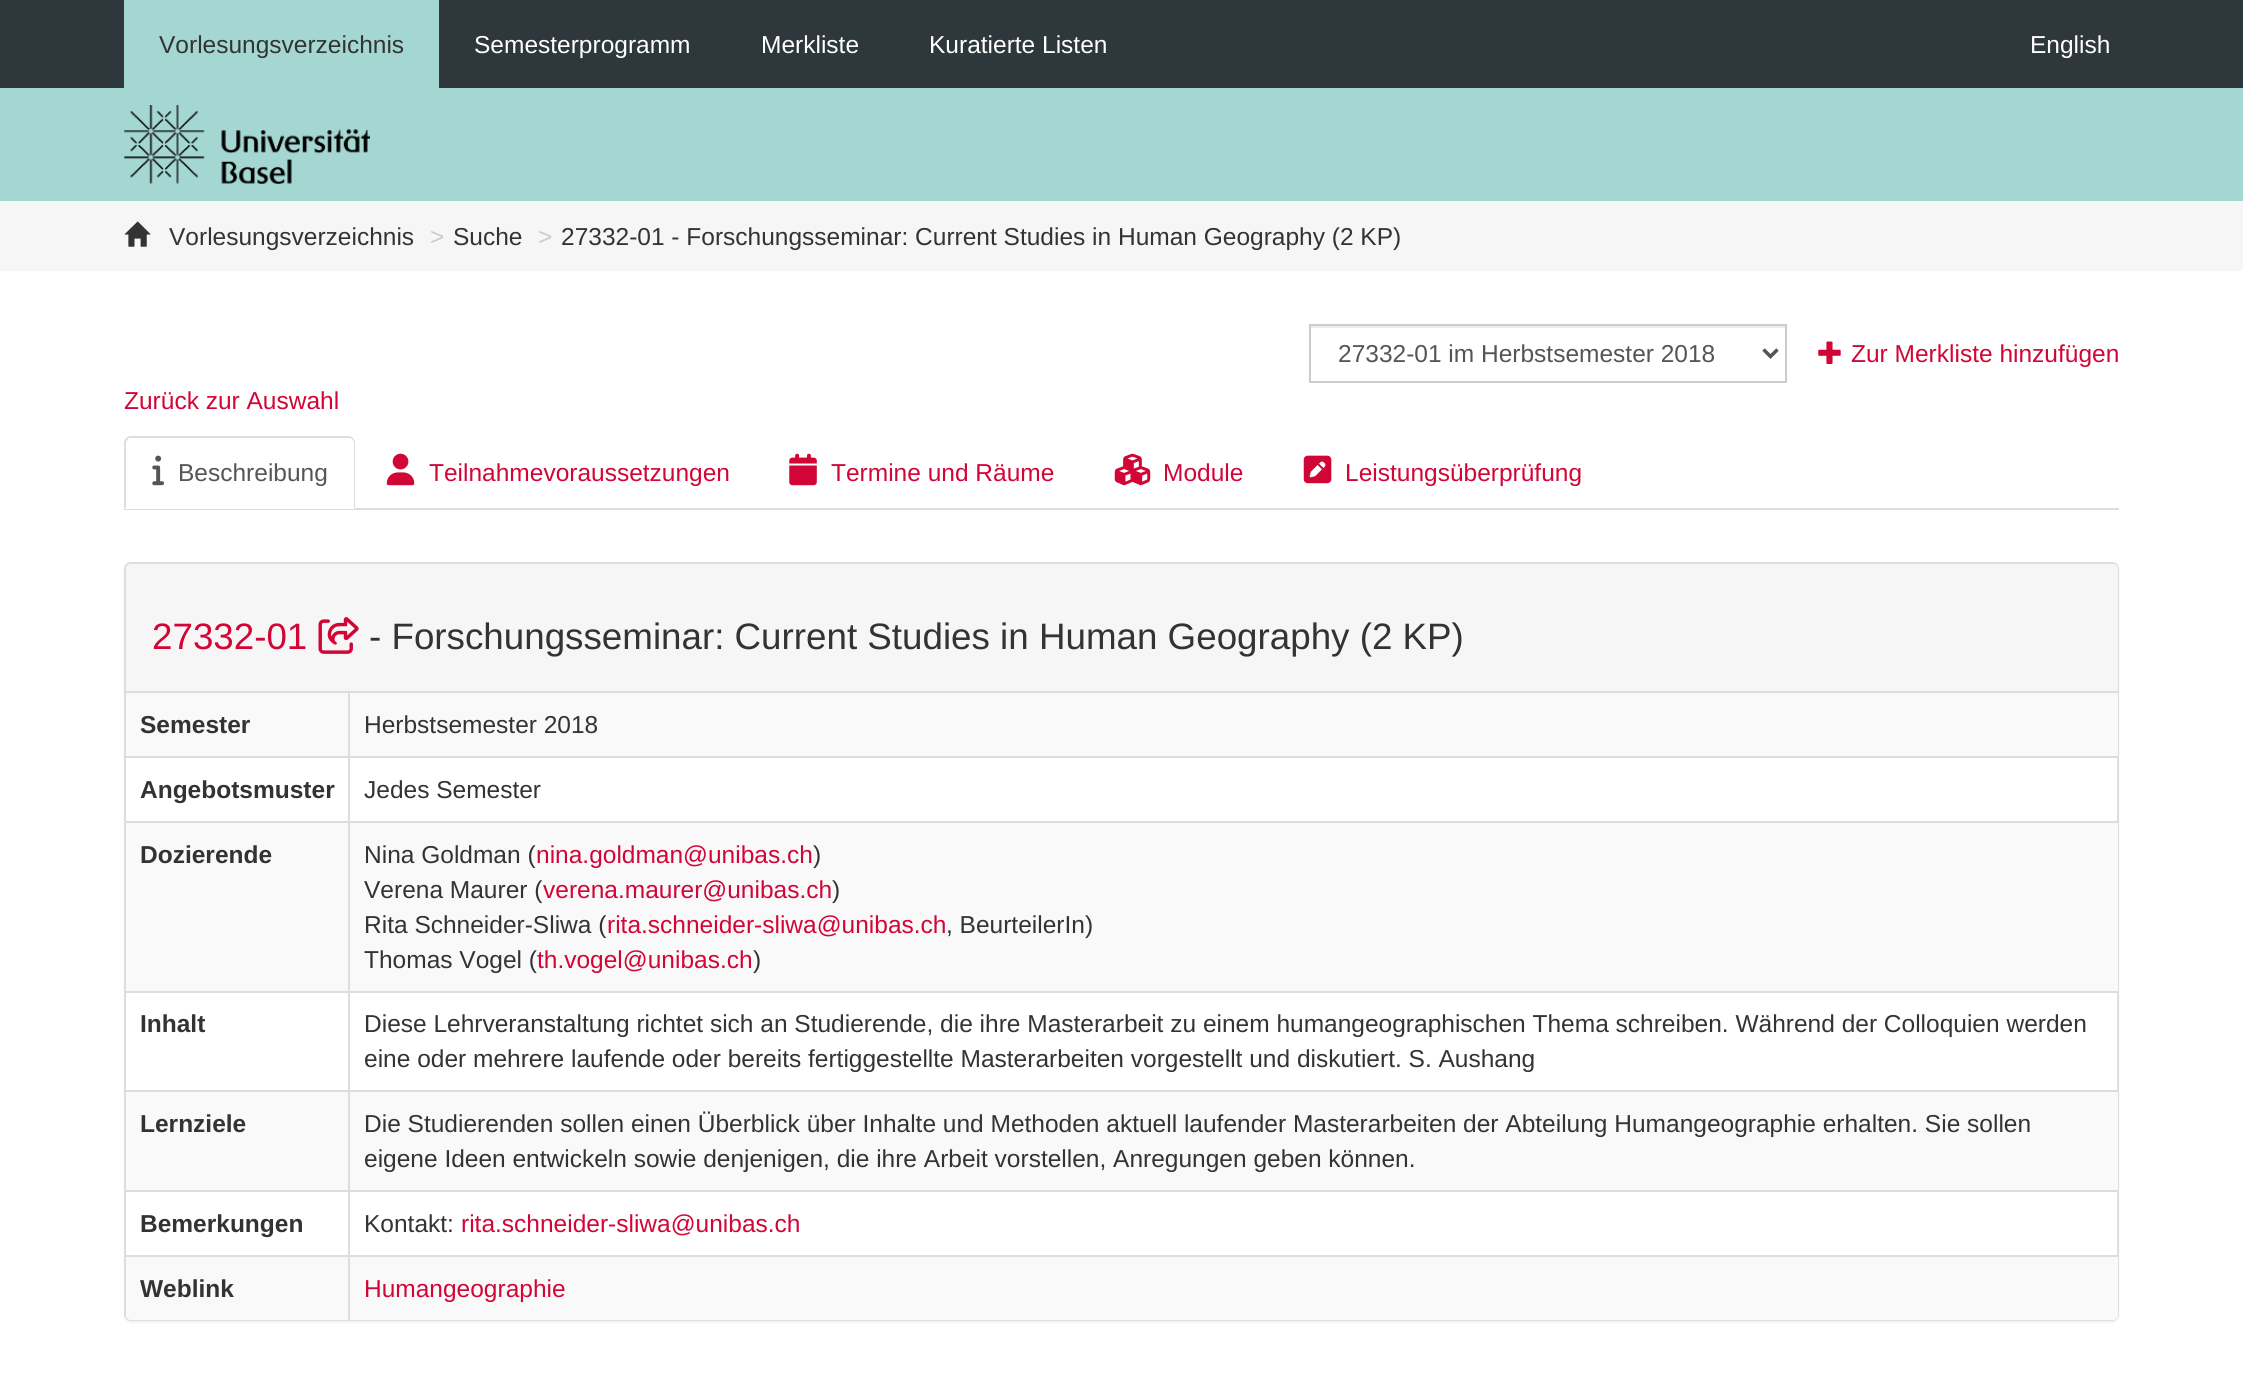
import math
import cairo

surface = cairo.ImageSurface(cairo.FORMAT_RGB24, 2243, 1377)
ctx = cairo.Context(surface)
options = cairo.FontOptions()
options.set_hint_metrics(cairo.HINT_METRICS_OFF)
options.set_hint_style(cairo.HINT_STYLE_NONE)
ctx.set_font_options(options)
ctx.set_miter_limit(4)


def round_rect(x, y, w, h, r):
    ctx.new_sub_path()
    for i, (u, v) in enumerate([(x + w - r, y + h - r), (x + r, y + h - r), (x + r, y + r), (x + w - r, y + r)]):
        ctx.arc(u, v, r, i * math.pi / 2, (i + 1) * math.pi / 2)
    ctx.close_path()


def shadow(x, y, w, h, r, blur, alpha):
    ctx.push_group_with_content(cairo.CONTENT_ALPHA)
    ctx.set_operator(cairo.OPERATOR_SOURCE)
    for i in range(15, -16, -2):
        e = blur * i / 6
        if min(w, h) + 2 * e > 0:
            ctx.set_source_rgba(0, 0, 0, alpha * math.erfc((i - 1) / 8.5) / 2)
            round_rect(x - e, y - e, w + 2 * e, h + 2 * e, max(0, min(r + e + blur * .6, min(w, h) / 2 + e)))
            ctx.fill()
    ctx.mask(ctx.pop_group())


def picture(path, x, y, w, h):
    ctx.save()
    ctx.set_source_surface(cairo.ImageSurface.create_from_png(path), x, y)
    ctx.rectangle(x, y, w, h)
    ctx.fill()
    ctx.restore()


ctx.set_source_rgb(1, 1, 1)
ctx.paint()
ctx.set_source_rgb(0.176, 0.216, 0.235)
ctx.rectangle(0, 0, 2243, 88)
ctx.fill()
ctx.set_source_rgb(0.647, 0.843, 0.824)
ctx.rectangle(124, 0, 315, 88)
ctx.fill()
ctx.select_font_face("Liberation Sans")
ctx.set_font_size(24.5)
ctx.set_source_rgb(0.2, 0.2, 0.2)
ctx.move_to(159, 53)
ctx.show_text("Vorlesungsverzeichnis")
ctx.set_source_rgb(1, 1, 1)
ctx.move_to(474, 53)
ctx.show_text("Semesterprogramm")
ctx.move_to(761, 53)
ctx.show_text("Merkliste")
ctx.move_to(929, 53)
ctx.show_text("Kuratierte Listen")
ctx.move_to(2030, 53)
ctx.show_text("English")
ctx.set_source_rgb(0.647, 0.843, 0.824)
ctx.rectangle(0, 88, 2243, 113)
ctx.fill()
picture("img1.png", 124, 105, 246, 79)
ctx.set_source_rgb(0.961, 0.961, 0.961)
ctx.rectangle(0, 201, 2243, 70)
ctx.fill()
picture("img2.png", 124, 221, 27, 26)
ctx.set_source_rgb(0.2, 0.2, 0.2)
ctx.move_to(169, 245)
ctx.show_text("Vorlesungsverzeichnis")
ctx.set_source_rgb(0.8, 0.8, 0.8)
ctx.move_to(430, 245)
ctx.show_text(">")
ctx.set_source_rgb(0.2, 0.2, 0.2)
ctx.move_to(453, 245)
ctx.show_text("Suche")
ctx.set_source_rgb(0.8, 0.8, 0.8)
ctx.move_to(538, 245)
ctx.show_text(">")
ctx.set_source_rgb(0.2, 0.2, 0.2)
ctx.move_to(561, 245)
ctx.show_text("27332-01 - Forschungsseminar: Current Studies in Human Geography (2 KP)")
ctx.set_source_rgb(0.925, 0.925, 0.925)
ctx.rectangle(1311, 326, 474, 2)
ctx.fill()
ctx.rectangle(1310, 325, 476, 57)
ctx.set_source_rgb(0.8, 0.8, 0.8)
ctx.stroke()
ctx.new_path()
ctx.move_to(1763.5, 349.5)
ctx.line_to(1770.5, 356.5)
ctx.line_to(1777.5, 349.5)
ctx.set_source_rgb(0.333, 0.333, 0.333)
ctx.set_line_width(3.5)
ctx.stroke()
ctx.move_to(1338, 362)
ctx.show_text("27332-01 im Herbstsemester 2018")
picture("img3.png", 1818, 341, 23, 23)
ctx.set_source_rgb(0.824, 0.02, 0.216)
ctx.move_to(1851, 362)
ctx.show_text("Zur Merkliste hinzufügen")
ctx.move_to(124, 409)
ctx.show_text("Zurück zur Auswahl")
ctx.set_source_rgb(0.867, 0.867, 0.867)
ctx.rectangle(124, 508, 1995, 2)
ctx.fill()
ctx.set_source_rgb(1, 1, 1)
ctx.new_path()
ctx.move_to(131, 436)
ctx.line_to(348, 436)
ctx.curve_to(352, 436, 355, 439, 355, 443)
ctx.line_to(355, 509)
ctx.line_to(124, 509)
ctx.line_to(124, 443)
ctx.curve_to(124, 439, 127, 436, 131, 436)
ctx.close_path()
ctx.fill()
ctx.set_source_rgb(0.867, 0.867, 0.867)
ctx.new_path()
ctx.move_to(131, 436)
ctx.curve_to(129, 436, 127, 437, 126, 438)
ctx.line_to(128, 439)
ctx.curve_to(128, 438, 130, 438, 131, 438)
ctx.line_to(348, 438)
ctx.curve_to(349, 438, 351, 438, 352, 439)
ctx.line_to(353, 438)
ctx.curve_to(352, 437, 350, 436, 348, 436)
ctx.close_path()
ctx.fill()
ctx.new_path()
ctx.move_to(355, 509)
ctx.line_to(355, 443)
ctx.curve_to(355, 441, 354, 439, 353, 438)
ctx.line_to(352, 439)
ctx.line_to(354, 442)
ctx.line_to(354, 508)
ctx.close_path()
ctx.fill()
ctx.new_path()
ctx.move_to(124, 441)
ctx.line_to(126, 438)
ctx.line_to(128, 439)
ctx.line_to(126, 442)
ctx.line_to(126, 508)
ctx.line_to(124, 509)
ctx.close_path()
ctx.fill()
picture("img4.png", 152, 455, 12, 31)
ctx.set_source_rgb(0.333, 0.333, 0.333)
ctx.move_to(178, 481)
ctx.show_text("Beschreibung")
picture("img5.png", 386, 453, 29, 33)
ctx.set_source_rgb(0.824, 0.02, 0.216)
ctx.move_to(429, 481)
ctx.show_text("Teilnahmevoraussetzungen")
picture("img6.png", 789, 453, 28, 33)
ctx.move_to(831, 481)
ctx.show_text("Termine und Räume")
picture("img7.png", 1114, 453, 37, 33)
ctx.move_to(1163, 481)
ctx.show_text("Module")
picture("img8.png", 1303, 455, 29, 29)
ctx.move_to(1345, 481)
ctx.show_text("Leistungsüberprüfung")
ctx.set_source_rgb(0, 0, 0)
shadow(124, 564, 1995, 759, 7, 1, 0.05)
ctx.set_source_rgb(1, 1, 1)
round_rect(125, 563, 1993, 757, 6)
ctx.fill_preserve()
ctx.set_source_rgb(0.867, 0.867, 0.867)
ctx.set_line_width(2)
ctx.stroke()
ctx.set_source_rgb(0.961, 0.961, 0.961)
ctx.new_path()
ctx.move_to(131, 564)
ctx.line_to(2113, 564)
ctx.curve_to(2116, 564, 2118, 566, 2118, 569)
ctx.line_to(2118, 693)
ctx.line_to(126, 693)
ctx.line_to(126, 569)
ctx.curve_to(126, 566, 128, 564, 131, 564)
ctx.close_path()
ctx.fill()
ctx.set_source_rgb(0.867, 0.867, 0.867)
ctx.rectangle(126, 691, 1992, 2)
ctx.fill()
ctx.set_font_size(36.75)
ctx.set_source_rgb(0.824, 0.02, 0.216)
ctx.move_to(152, 649)
ctx.show_text("27332-01")
picture("img9.png", 318, 617, 41, 37)
ctx.set_source_rgb(0.2, 0.2, 0.2)
ctx.move_to(369, 649)
ctx.show_text("- Forschungsseminar: Current Studies in Human Geography (2 KP)")
ctx.set_source_rgb(0.976, 0.976, 0.976)
ctx.rectangle(126, 693, 1992, 63)
ctx.fill()
ctx.select_font_face("Liberation Sans", cairo.FONT_SLANT_NORMAL, cairo.FONT_WEIGHT_BOLD)
ctx.set_font_size(24.5)
ctx.set_source_rgb(0.2, 0.2, 0.2)
ctx.move_to(140, 733)
ctx.show_text("Semester")
ctx.set_source_rgb(0.867, 0.867, 0.867)
ctx.rectangle(348, 756, 1771, 2)
ctx.fill()
ctx.rectangle(348, 821, 1771, 2)
ctx.fill()
ctx.set_source_rgb(0.976, 0.976, 0.976)
ctx.rectangle(126, 823, 1992, 168)
ctx.fill()
ctx.set_source_rgb(0.867, 0.867, 0.867)
ctx.rectangle(348, 991, 1771, 2)
ctx.fill()
ctx.rectangle(348, 1090, 1771, 2)
ctx.fill()
ctx.set_source_rgb(0.976, 0.976, 0.976)
ctx.rectangle(126, 1092, 1992, 98)
ctx.fill()
ctx.set_source_rgb(0.867, 0.867, 0.867)
ctx.rectangle(348, 1190, 1771, 2)
ctx.fill()
ctx.set_source_rgb(0.976, 0.976, 0.976)
ctx.new_path()
ctx.move_to(126, 1255)
ctx.line_to(2118, 1255)
ctx.line_to(2118, 1315)
ctx.curve_to(2118, 1318, 2116, 1320, 2113, 1320)
ctx.line_to(131, 1320)
ctx.curve_to(128, 1320, 126, 1318, 126, 1315)
ctx.close_path()
ctx.fill()
ctx.set_source_rgb(0.867, 0.867, 0.867)
ctx.rectangle(348, 1255, 1771, 2)
ctx.fill()
ctx.rectangle(348, 1255, 2, 65)
ctx.fill()
ctx.rectangle(126, 1255, 224, 2)
ctx.fill()
ctx.rectangle(348, 1190, 2, 67)
ctx.fill()
ctx.rectangle(126, 1190, 224, 2)
ctx.fill()
ctx.rectangle(348, 1090, 2, 102)
ctx.fill()
ctx.rectangle(126, 1090, 224, 2)
ctx.fill()
ctx.rectangle(348, 991, 2, 101)
ctx.fill()
ctx.rectangle(126, 991, 224, 2)
ctx.fill()
ctx.rectangle(348, 821, 2, 171)
ctx.fill()
ctx.rectangle(126, 821, 224, 2)
ctx.fill()
ctx.rectangle(348, 756, 2, 67)
ctx.fill()
ctx.rectangle(126, 756, 224, 2)
ctx.fill()
ctx.rectangle(348, 691, 2, 67)
ctx.fill()
ctx.select_font_face("Liberation Sans")
ctx.set_source_rgb(0.2, 0.2, 0.2)
ctx.move_to(364, 733)
ctx.show_text("Herbstsemester 2018")
ctx.select_font_face("Liberation Sans", cairo.FONT_SLANT_NORMAL, cairo.FONT_WEIGHT_BOLD)
ctx.move_to(140, 798)
ctx.show_text("Angebotsmuster")
ctx.select_font_face("Liberation Sans")
ctx.move_to(364, 798)
ctx.show_text("Jedes Semester")
ctx.select_font_face("Liberation Sans", cairo.FONT_SLANT_NORMAL, cairo.FONT_WEIGHT_BOLD)
ctx.move_to(140, 863)
ctx.show_text("Dozierende")
ctx.select_font_face("Liberation Sans")
ctx.move_to(364, 863)
ctx.show_text("Nina Goldman (")
ctx.set_source_rgb(0.824, 0.02, 0.216)
ctx.move_to(536, 863)
ctx.show_text("nina.goldman@unibas.ch")
ctx.set_source_rgb(0.2, 0.2, 0.2)
ctx.move_to(813, 863)
ctx.show_text(")")
ctx.move_to(364, 898)
ctx.show_text("Verena Maurer (")
ctx.set_source_rgb(0.824, 0.02, 0.216)
ctx.move_to(543, 898)
ctx.show_text("verena.maurer@unibas.ch")
ctx.set_source_rgb(0.2, 0.2, 0.2)
ctx.move_to(832, 898)
ctx.show_text(")")
ctx.move_to(364, 933)
ctx.show_text("Rita Schneider-Sliwa (")
ctx.set_source_rgb(0.824, 0.02, 0.216)
ctx.move_to(607, 933)
ctx.show_text("rita.schneider-sliwa@unibas.ch")
ctx.set_source_rgb(0.2, 0.2, 0.2)
ctx.move_to(946, 933)
ctx.show_text(", BeurteilerIn)")
ctx.move_to(364, 968)
ctx.show_text("Thomas Vogel (")
ctx.set_source_rgb(0.824, 0.02, 0.216)
ctx.move_to(537, 968)
ctx.show_text("th.vogel@unibas.ch")
ctx.set_source_rgb(0.2, 0.2, 0.2)
ctx.move_to(753, 968)
ctx.show_text(")")
ctx.select_font_face("Liberation Sans", cairo.FONT_SLANT_NORMAL, cairo.FONT_WEIGHT_BOLD)
ctx.move_to(140, 1032)
ctx.show_text("Inhalt")
ctx.select_font_face("Liberation Sans")
ctx.move_to(364, 1032)
ctx.show_text("Diese Lehrveranstaltung richtet sich an Studierende, die ihre Masterarbeit zu einem humangeographischen Thema schreiben. Während der Colloquien werden")
ctx.move_to(364, 1067)
ctx.show_text("eine oder mehrere laufende oder bereits fertiggestellte Masterarbeiten vorgestellt und diskutiert. S. Aushang")
ctx.select_font_face("Liberation Sans", cairo.FONT_SLANT_NORMAL, cairo.FONT_WEIGHT_BOLD)
ctx.move_to(140, 1132)
ctx.show_text("Lernziele")
ctx.select_font_face("Liberation Sans")
ctx.move_to(364, 1132)
ctx.show_text("Die Studierenden sollen einen Überblick über Inhalte und Methoden aktuell laufender Masterarbeiten der Abteilung Humangeographie erhalten. Sie sollen")
ctx.move_to(364, 1167)
ctx.show_text("eigene Ideen entwickeln sowie denjenigen, die ihre Arbeit vorstellen, Anregungen geben können.")
ctx.select_font_face("Liberation Sans", cairo.FONT_SLANT_NORMAL, cairo.FONT_WEIGHT_BOLD)
ctx.move_to(140, 1232)
ctx.show_text("Bemerkungen")
ctx.select_font_face("Liberation Sans")
ctx.move_to(364, 1232)
ctx.show_text("Kontakt:")
ctx.set_source_rgb(0.824, 0.02, 0.216)
ctx.move_to(461, 1232)
ctx.show_text("rita.schneider-sliwa@unibas.ch")
ctx.select_font_face("Liberation Sans", cairo.FONT_SLANT_NORMAL, cairo.FONT_WEIGHT_BOLD)
ctx.set_source_rgb(0.2, 0.2, 0.2)
ctx.move_to(140, 1297)
ctx.show_text("Weblink")
ctx.select_font_face("Liberation Sans")
ctx.set_source_rgb(0.824, 0.02, 0.216)
ctx.move_to(364, 1297)
ctx.show_text("Humangeographie")
surface.write_to_png("page.png")
